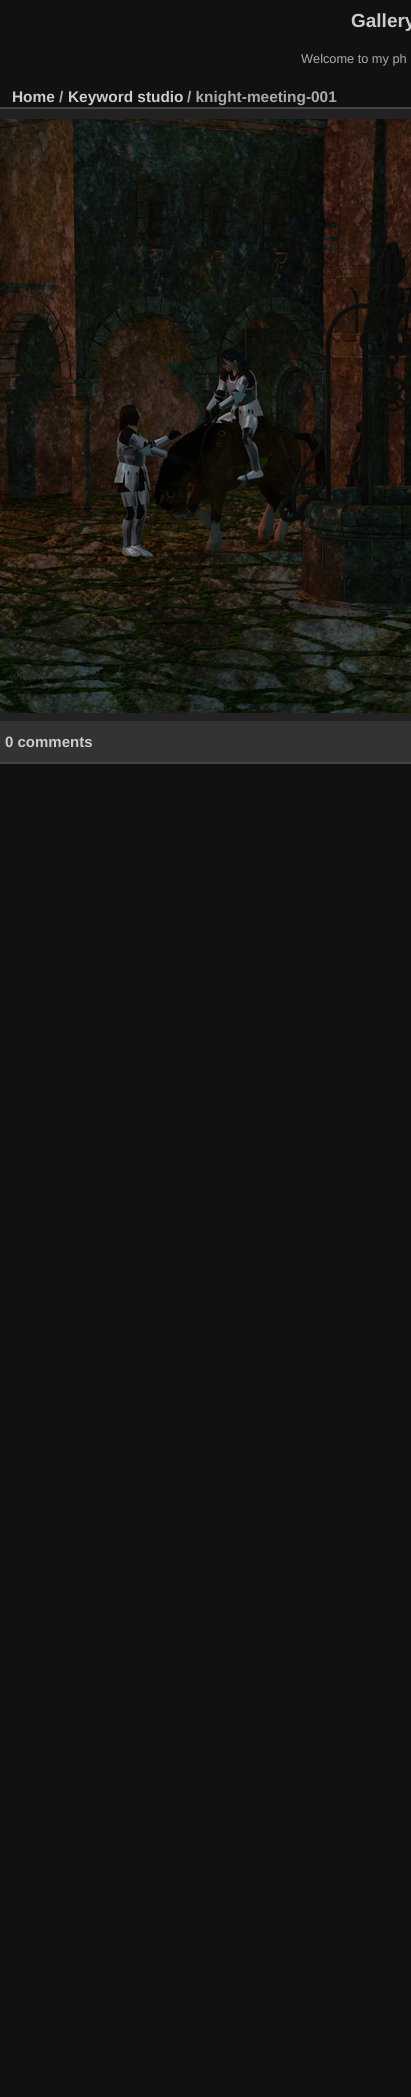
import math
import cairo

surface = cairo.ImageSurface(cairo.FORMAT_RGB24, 411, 2097)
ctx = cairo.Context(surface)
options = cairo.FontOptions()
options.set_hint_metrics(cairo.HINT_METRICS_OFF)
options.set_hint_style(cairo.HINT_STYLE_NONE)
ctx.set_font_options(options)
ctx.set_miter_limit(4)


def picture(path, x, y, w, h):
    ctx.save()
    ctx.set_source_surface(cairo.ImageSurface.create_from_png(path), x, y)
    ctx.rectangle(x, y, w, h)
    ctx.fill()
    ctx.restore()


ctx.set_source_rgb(0.067, 0.067, 0.067)
ctx.paint()
ctx.select_font_face("Liberation Sans", cairo.FONT_SLANT_NORMAL, cairo.FONT_WEIGHT_BOLD)
ctx.set_font_size(19)
ctx.set_source_rgb(0.8, 0.8, 0.8)
ctx.move_to(351, 27)
ctx.show_text("Gallery")
ctx.select_font_face("Liberation Sans")
ctx.set_font_size(12.75)
ctx.set_source_rgb(0.667, 0.667, 0.667)
ctx.move_to(301, 63)
ctx.show_text("Welcome to my ph")
ctx.set_source_rgb(0.133, 0.133, 0.133)
ctx.rectangle(0, 109, 411, 612)
ctx.fill()
ctx.set_source_rgb(0.267, 0.267, 0.267)
ctx.rectangle(0, 762, 411, 2)
ctx.fill()
ctx.rectangle(0, 107, 411, 2)
ctx.fill()
ctx.select_font_face("Liberation Sans", cairo.FONT_SLANT_NORMAL, cairo.FONT_WEIGHT_BOLD)
ctx.set_font_size(15.4)
ctx.set_source_rgb(0.8, 0.8, 0.8)
ctx.move_to(12, 102)
ctx.show_text("Home")
ctx.set_source_rgb(0.667, 0.667, 0.667)
ctx.move_to(59, 102)
ctx.show_text("/")
ctx.set_source_rgb(0.8, 0.8, 0.8)
ctx.move_to(68, 102)
ctx.show_text("Keyword studio")
ctx.set_source_rgb(0.667, 0.667, 0.667)
ctx.move_to(187, 102)
ctx.show_text("/ knight-meeting-001")
picture("img1.png", 0, 119, 411, 594)
ctx.set_source_rgb(0.2, 0.2, 0.2)
ctx.rectangle(0, 721, 411, 41)
ctx.fill()
ctx.set_font_size(15)
ctx.set_source_rgb(0.8, 0.8, 0.8)
ctx.move_to(5, 747)
ctx.show_text("0 comments")
surface.write_to_png("page.png")
